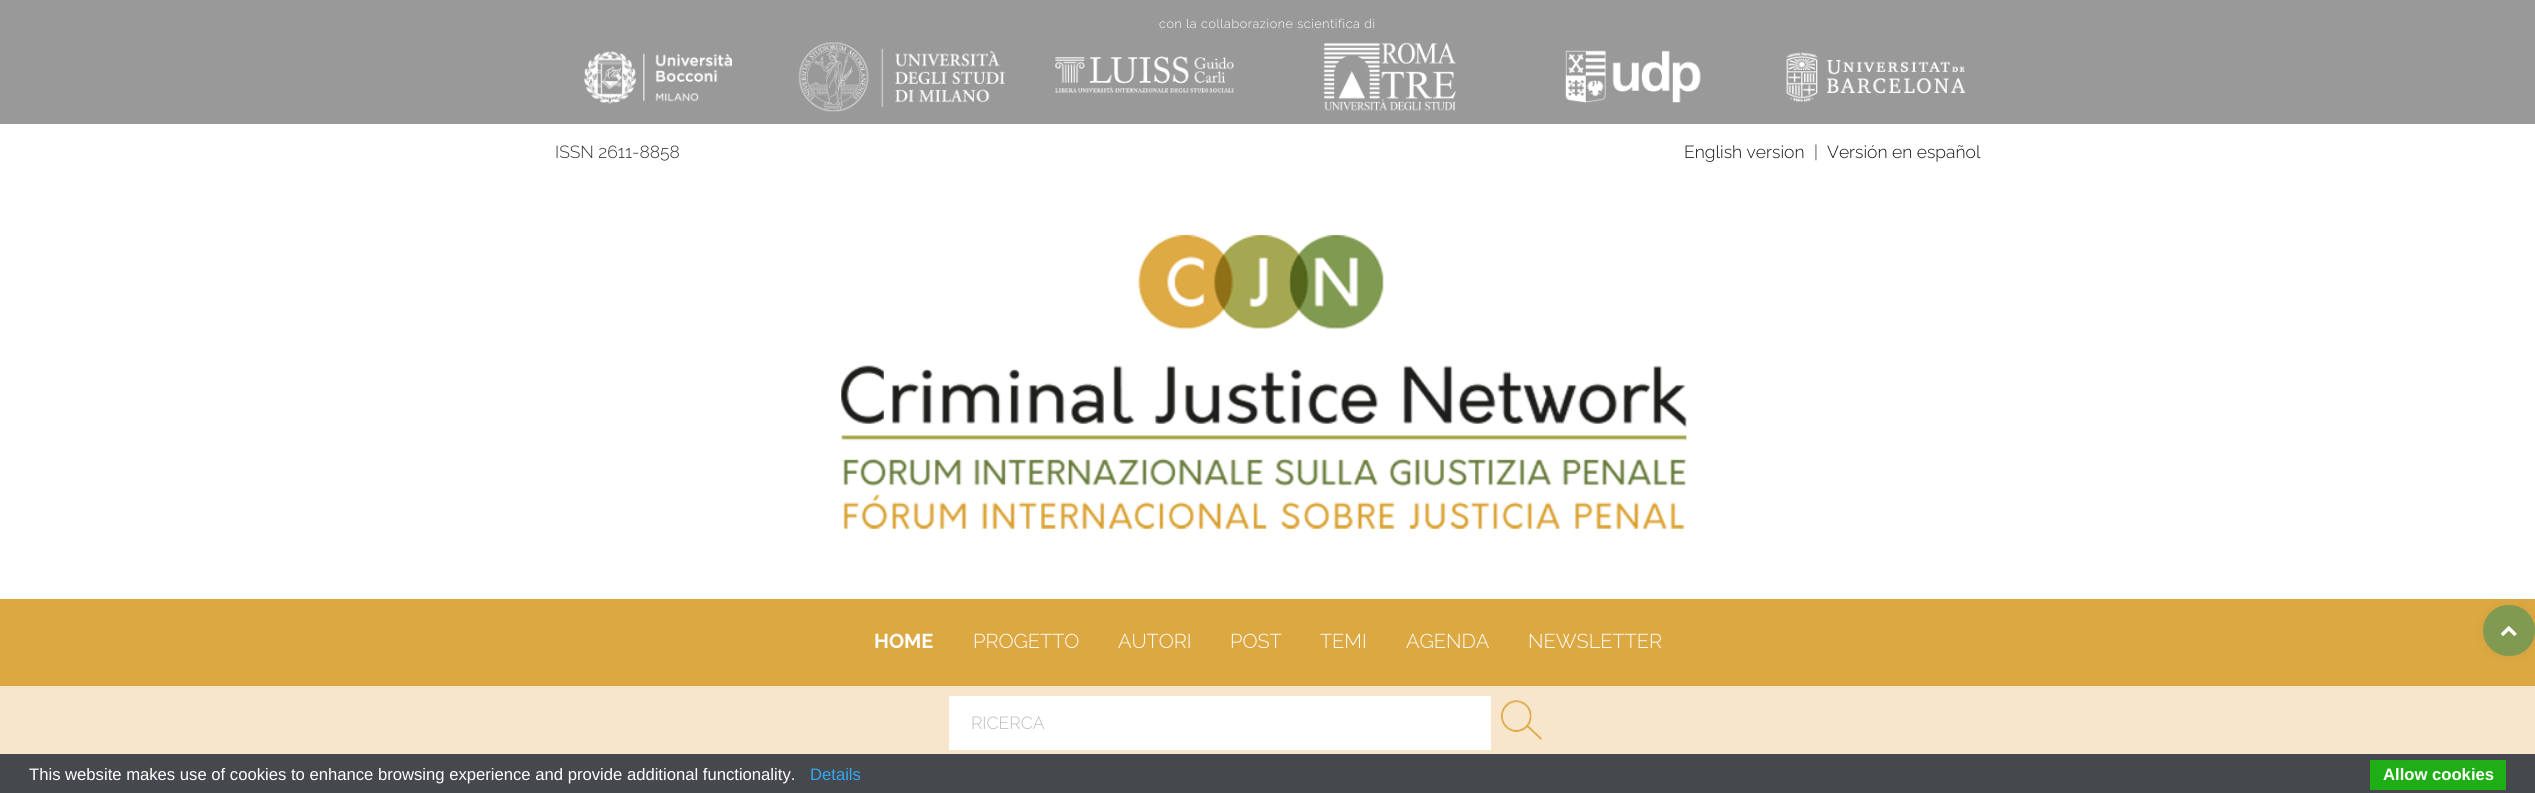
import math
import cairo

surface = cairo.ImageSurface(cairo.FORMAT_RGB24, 2535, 793)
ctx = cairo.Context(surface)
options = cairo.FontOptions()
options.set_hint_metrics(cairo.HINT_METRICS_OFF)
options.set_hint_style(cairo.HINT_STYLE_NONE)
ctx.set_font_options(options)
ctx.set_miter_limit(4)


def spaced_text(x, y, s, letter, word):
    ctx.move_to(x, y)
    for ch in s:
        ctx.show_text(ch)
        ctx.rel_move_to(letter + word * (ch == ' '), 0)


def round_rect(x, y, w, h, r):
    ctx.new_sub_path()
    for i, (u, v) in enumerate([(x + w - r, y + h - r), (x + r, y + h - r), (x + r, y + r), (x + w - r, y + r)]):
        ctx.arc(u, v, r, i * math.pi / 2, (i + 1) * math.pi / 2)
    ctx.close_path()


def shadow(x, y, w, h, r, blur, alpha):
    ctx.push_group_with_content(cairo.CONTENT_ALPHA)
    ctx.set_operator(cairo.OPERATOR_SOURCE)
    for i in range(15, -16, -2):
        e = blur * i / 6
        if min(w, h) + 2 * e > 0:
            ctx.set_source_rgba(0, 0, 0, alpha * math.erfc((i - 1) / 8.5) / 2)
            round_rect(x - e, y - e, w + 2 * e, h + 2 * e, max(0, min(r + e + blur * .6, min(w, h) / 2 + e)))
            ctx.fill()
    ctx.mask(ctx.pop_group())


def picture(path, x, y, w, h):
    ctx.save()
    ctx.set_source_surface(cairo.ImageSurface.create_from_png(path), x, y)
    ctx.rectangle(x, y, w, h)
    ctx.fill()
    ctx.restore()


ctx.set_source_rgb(1, 1, 1)
ctx.paint()
ctx.set_source_rgb(0.6, 0.6, 0.6)
ctx.rectangle(0, 0, 2535, 124)
ctx.fill()
ctx.select_font_face("Raleway Light")
ctx.set_font_size(12.5)
ctx.set_source_rgb(1, 1, 1)
spaced_text(1159, 28, "con la collaborazione scientifica di", 0.6, 0)
picture("img1.png", 584, 51, 148, 53)
picture("img2.png", 798, 42, 207, 70)
picture("img3.png", 1055, 56, 179, 37)
picture("img4.png", 1323, 42, 133, 69)
picture("img5.png", 1565, 50, 136, 53)
picture("img6.png", 1786, 52, 180, 50)
ctx.set_font_size(17.5)
ctx.set_source_rgb(0.2, 0.2, 0.2)
ctx.move_to(555, 158)
ctx.show_text("ISSN 2611-8858")
ctx.set_source_rgb(0.067, 0.067, 0.067)
ctx.move_to(1684, 158)
ctx.show_text("English version")
ctx.set_source_rgb(0.2, 0.2, 0.2)
ctx.move_to(1814, 158)
ctx.show_text("|")
ctx.set_source_rgb(0.067, 0.067, 0.067)
ctx.move_to(1827, 158)
ctx.show_text("Versión en español")
picture("img7.png", 841, 234, 846, 295)
ctx.set_source_rgb(0.863, 0.659, 0.259)
ctx.rectangle(0, 599, 2535, 87)
ctx.fill()
ctx.select_font_face("Raleway", cairo.FONT_SLANT_NORMAL, cairo.FONT_WEIGHT_BOLD)
ctx.set_font_size(20)
ctx.set_source_rgb(1, 1, 1)
ctx.move_to(874, 648)
ctx.show_text("HOME")
ctx.select_font_face("Raleway Light")
ctx.move_to(973, 648)
ctx.show_text("PROGETTO")
ctx.move_to(1118, 648)
ctx.show_text("AUTORI")
ctx.move_to(1230, 648)
ctx.show_text("POST")
ctx.move_to(1320, 648)
ctx.show_text("TEMI")
ctx.move_to(1406, 648)
ctx.show_text("AGENDA")
ctx.move_to(1528, 648)
ctx.show_text("NEWSLETTER")
ctx.set_source_rgb(0, 0, 0)
shadow(2483, 605, 52, 51, 25.5, 6, 0.05)
ctx.set_source_rgb(0.502, 0.604, 0.318)
round_rect(2483, 605, 52, 51, 25.5)
ctx.fill()
picture("img8.png", 2500, 626, 17, 10)
ctx.set_source_rgb(0.965, 0.902, 0.8)
ctx.rectangle(0, 686, 2535, 68)
ctx.fill()
ctx.set_source_rgb(1, 1, 1)
ctx.rectangle(949, 696, 542, 54)
ctx.fill()
ctx.set_font_size(17.5)
ctx.set_source_rgb(0.733, 0.733, 0.733)
ctx.move_to(971, 729)
ctx.show_text("RICERCA")
picture("img9.png", 1501, 700, 41, 40)
ctx.set_source_rgb(0.271, 0.282, 0.302)
ctx.rectangle(0, 754, 2535, 39)
ctx.fill()
ctx.select_font_face("Liberation Sans")
ctx.set_font_size(16.65)
ctx.set_source_rgb(1, 1, 1)
ctx.move_to(29, 780)
ctx.show_text("This website makes use of cookies to enhance browsing experience and provide additional functionality.")
ctx.set_source_rgb(0.192, 0.659, 0.941)
ctx.move_to(810, 780)
ctx.show_text("Details")
ctx.set_source_rgb(0.122, 0.682, 0.086)
ctx.rectangle(2370, 760, 136, 30)
ctx.fill()
ctx.select_font_face("Liberation Sans", cairo.FONT_SLANT_NORMAL, cairo.FONT_WEIGHT_BOLD)
ctx.set_source_rgb(1, 1, 1)
ctx.move_to(2383, 780)
ctx.show_text("Allow cookies")
surface.write_to_png("page.png")
